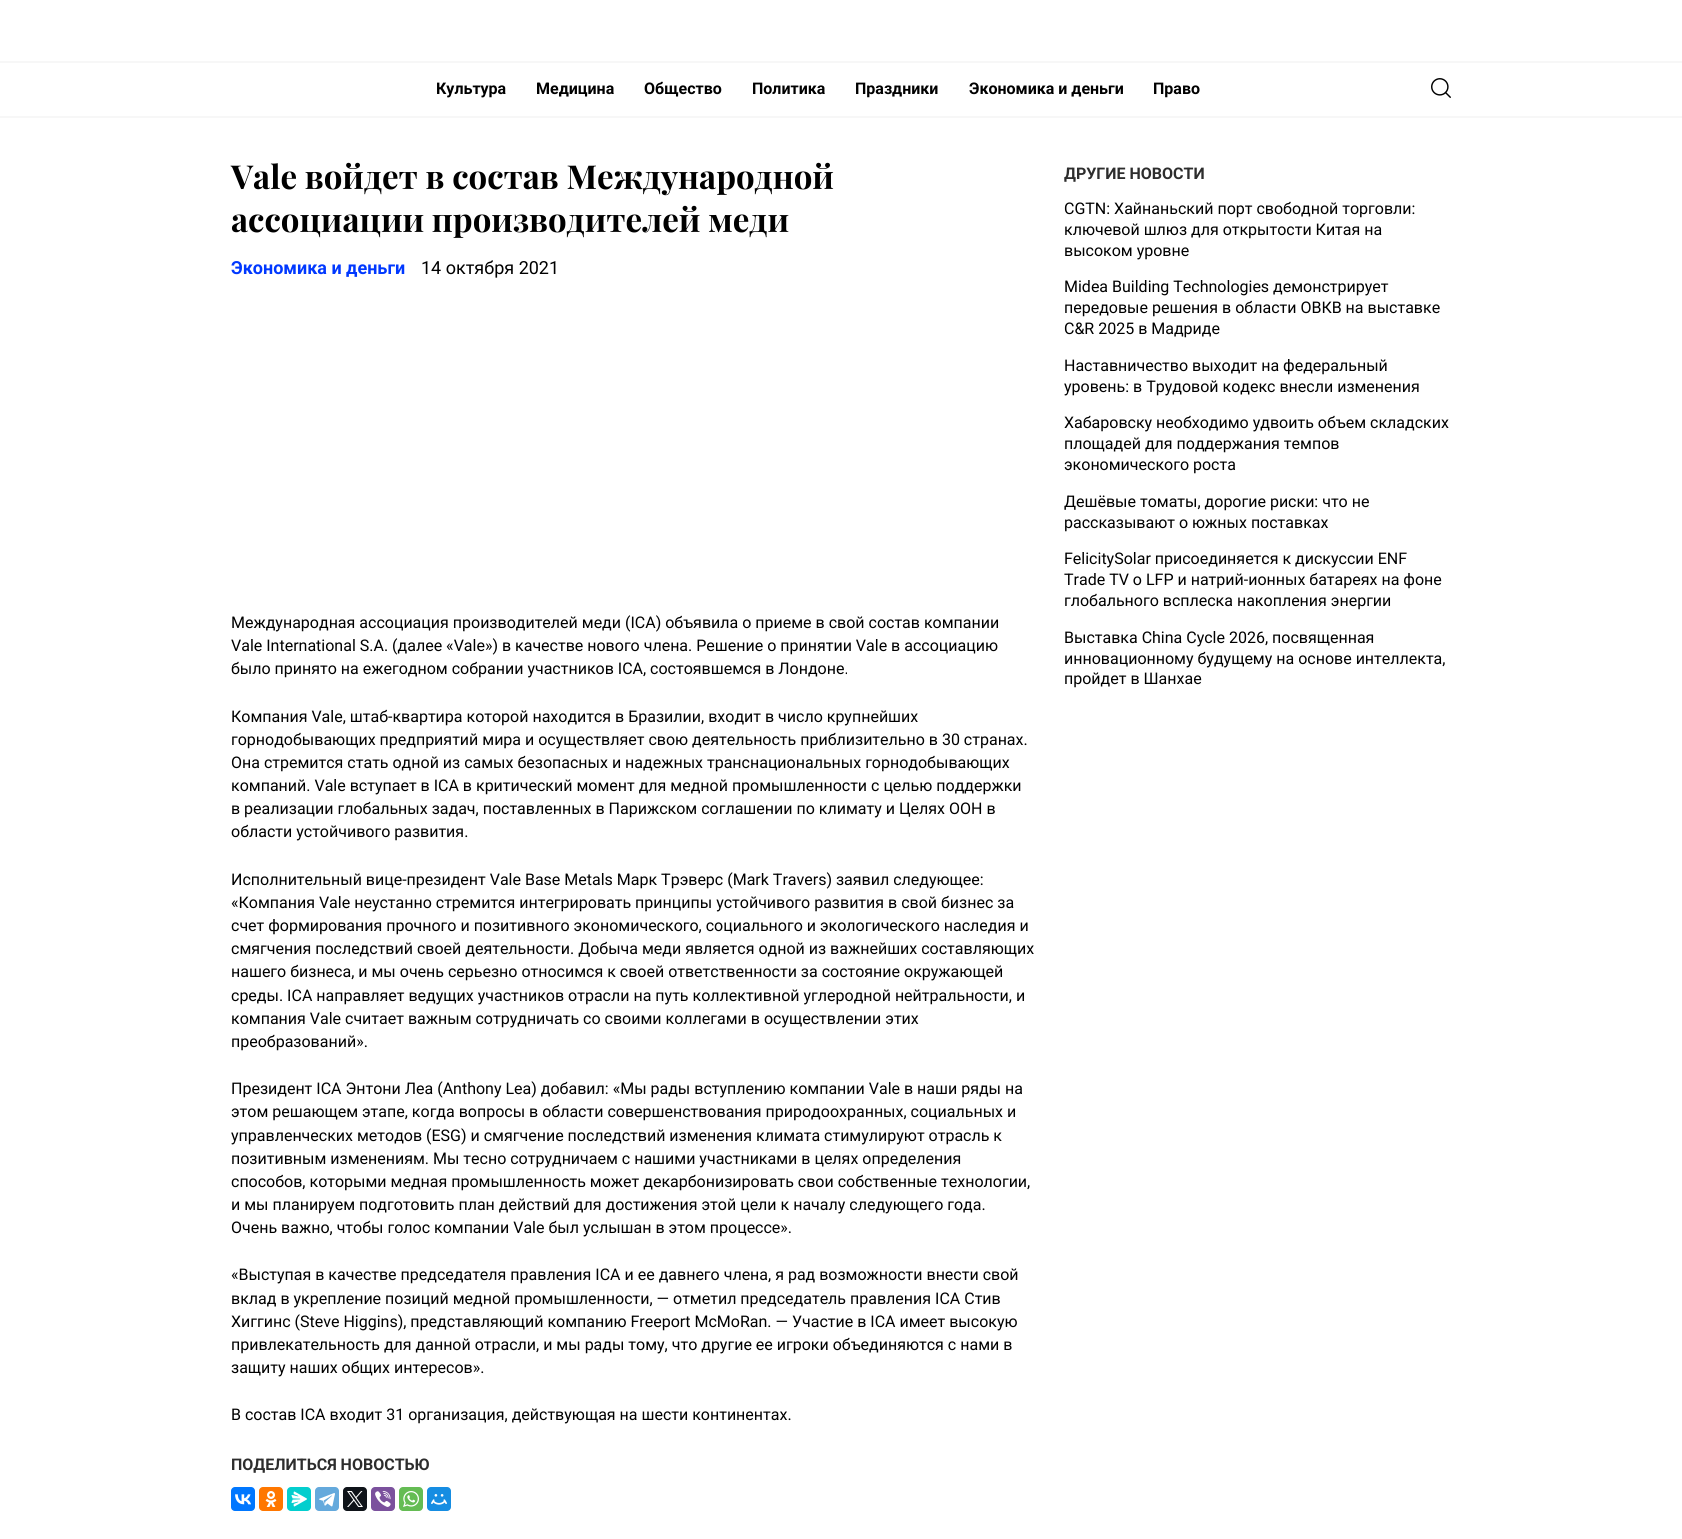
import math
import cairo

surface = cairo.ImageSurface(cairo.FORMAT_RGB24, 1682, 1539)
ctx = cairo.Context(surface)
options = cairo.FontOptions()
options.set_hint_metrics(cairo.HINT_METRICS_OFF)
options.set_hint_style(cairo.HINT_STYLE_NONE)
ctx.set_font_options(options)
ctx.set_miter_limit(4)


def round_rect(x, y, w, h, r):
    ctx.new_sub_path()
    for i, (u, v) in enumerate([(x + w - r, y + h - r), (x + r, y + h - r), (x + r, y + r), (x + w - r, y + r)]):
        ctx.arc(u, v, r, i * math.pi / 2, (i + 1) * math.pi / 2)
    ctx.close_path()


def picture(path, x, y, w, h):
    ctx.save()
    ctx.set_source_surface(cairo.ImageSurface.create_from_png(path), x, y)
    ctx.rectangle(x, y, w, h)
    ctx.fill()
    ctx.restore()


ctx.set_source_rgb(1, 1, 1)
ctx.paint()
ctx.set_source_rgb(0.965, 0.965, 0.965)
ctx.rectangle(0, 61, 1682, 2)
ctx.fill()
ctx.rectangle(0, 116, 1682, 2)
ctx.fill()
ctx.select_font_face("Roboto", cairo.FONT_SLANT_NORMAL, cairo.FONT_WEIGHT_BOLD)
ctx.set_font_size(16)
ctx.set_source_rgb(0, 0, 0)
ctx.move_to(436, 94)
ctx.show_text("Культура")
ctx.move_to(536, 94)
ctx.show_text("Медицина")
ctx.move_to(644, 94)
ctx.show_text("Общество")
ctx.move_to(752, 94)
ctx.show_text("Политика")
ctx.move_to(855, 94)
ctx.show_text("Праздники")
ctx.move_to(969, 94)
ctx.show_text("Экономика и деньги")
ctx.move_to(1153, 94)
ctx.show_text("Право")
picture("img1.png", 1431, 78, 20, 20)
ctx.select_font_face("Playfair Display", cairo.FONT_SLANT_NORMAL, cairo.FONT_WEIGHT_BOLD)
ctx.set_font_size(33)
ctx.move_to(231, 189)
ctx.show_text("Vale войдет в состав Международной")
ctx.move_to(231, 232)
ctx.show_text("ассоциации производителей меди")
ctx.select_font_face("Roboto", cairo.FONT_SLANT_NORMAL, cairo.FONT_WEIGHT_BOLD)
ctx.set_font_size(18)
ctx.set_source_rgb(0, 0.22, 1)
ctx.move_to(231, 274)
ctx.show_text("Экономика и деньги")
ctx.select_font_face("Roboto")
ctx.set_source_rgb(0, 0, 0)
ctx.move_to(421, 274)
ctx.show_text("14 октября 2021")
ctx.set_font_size(16)
ctx.move_to(231, 628)
ctx.show_text("Международная ассоциация производителей меди (ICA) объявила о приеме в свой состав компании")
ctx.move_to(231, 651)
ctx.show_text("Vale International S.A. (далее «Vale») в качестве нового члена. Решение о принятии Vale в ассоциацию")
ctx.move_to(231, 674)
ctx.show_text("было принято на ежегодном собрании участников ICA, состоявшемся в Лондоне.")
ctx.move_to(231, 722)
ctx.show_text("Компания Vale, штаб-квартира которой находится в Бразилии, входит в число крупнейших")
ctx.move_to(231, 745)
ctx.show_text("горнодобывающих предприятий мира и осуществляет свою деятельность приблизительно в 30 странах.")
ctx.move_to(231, 768)
ctx.show_text("Она стремится стать одной из самых безопасных и надежных транснациональных горнодобывающих")
ctx.move_to(231, 791)
ctx.show_text("компаний. Vale вступает в ICA в критический момент для медной промышленности с целью поддержки")
ctx.move_to(231, 814)
ctx.show_text("в реализации глобальных задач, поставленных в Парижском соглашении по климату и Целях ООН в")
ctx.move_to(231, 837)
ctx.show_text("области устойчивого развития.")
ctx.move_to(231, 885)
ctx.show_text("Исполнительный вице-президент Vale Base Metals Марк Трэверс (Mark Travers) заявил следующее:")
ctx.move_to(231, 908)
ctx.show_text("«Компания Vale неустанно стремится интегрировать принципы устойчивого развития в свой бизнес за")
ctx.move_to(231, 931)
ctx.show_text("счет формирования прочного и позитивного экономического, социального и экологического наследия и")
ctx.move_to(231, 954)
ctx.show_text("смягчения последствий своей деятельности. Добыча меди является одной из важнейших составляющих")
ctx.move_to(231, 977)
ctx.show_text("нашего бизнеса, и мы очень серьезно относимся к своей ответственности за состояние окружающей")
ctx.move_to(231, 1001)
ctx.show_text("среды. ICA направляет ведущих участников отрасли на путь коллективной углеродной нейтральности, и")
ctx.move_to(231, 1024)
ctx.show_text("компания Vale считает важным сотрудничать со своими коллегами в осуществлении этих")
ctx.move_to(231, 1047)
ctx.show_text("преобразований».")
ctx.move_to(231, 1094)
ctx.show_text("Президент ICA Энтони Леа (Anthony Lea) добавил: «Мы рады вступлению компании Vale в наши ряды на")
ctx.move_to(231, 1117)
ctx.show_text("этом решающем этапе, когда вопросы в области совершенствования природоохранных, социальных и")
ctx.move_to(231, 1141)
ctx.show_text("управленческих методов (ESG) и смягчение последствий изменения климата стимулируют отрасль к")
ctx.move_to(231, 1164)
ctx.show_text("позитивным изменениям. Мы тесно сотрудничаем с нашими участниками в целях определения")
ctx.move_to(231, 1187)
ctx.show_text("способов, которыми медная промышленность может декарбонизировать свои собственные технологии,")
ctx.move_to(231, 1210)
ctx.show_text("и мы планируем подготовить план действий для достижения этой цели к началу следующего года.")
ctx.move_to(231, 1233)
ctx.show_text("Очень важно, чтобы голос компании Vale был услышан в этом процессе».")
ctx.move_to(231, 1280)
ctx.show_text("«Выступая в качестве председателя правления ICA и ее давнего члена, я рад возможности внести свой")
ctx.move_to(231, 1304)
ctx.show_text("вклад в укрепление позиций медной промышленности, — отметил председатель правления ICA Стив")
ctx.move_to(231, 1327)
ctx.show_text("Хиггинс (Steve Higgins), представляющий компанию Freeport McMoRan. — Участие в ICA имеет высокую")
ctx.move_to(231, 1350)
ctx.show_text("привлекательность для данной отрасли, и мы рады тому, что другие ее игроки объединяются с нами в")
ctx.move_to(231, 1373)
ctx.show_text("защиту наших общих интересов».")
ctx.move_to(231, 1420)
ctx.show_text("В состав ICA входит 31 организация, действующая на шести континентах.")
ctx.select_font_face("Roboto", cairo.FONT_SLANT_NORMAL, cairo.FONT_WEIGHT_BOLD)
ctx.set_source_rgb(0.176, 0.176, 0.176)
ctx.move_to(231, 1470)
ctx.show_text("ПОДЕЛИТЬСЯ НОВОСТЬЮ")
ctx.set_source_rgb(0, 0.467, 1)
round_rect(231, 1487, 24, 24, 4)
ctx.fill()
picture("img2.png", 235, 1494, 16, 11)
ctx.set_source_rgb(1, 0.467, 0)
round_rect(259, 1487, 24, 24, 4)
ctx.fill()
picture("img3.png", 265, 1491, 12, 16)
ctx.set_source_rgb(0.012, 0.808, 0.808)
round_rect(287, 1487, 24, 24, 4)
ctx.fill()
picture("img4.png", 291, 1491, 16, 16)
ctx.set_source_rgb(0.392, 0.663, 0.863)
round_rect(315, 1487, 24, 24, 4)
ctx.fill()
picture("img5.png", 319, 1493, 16, 14)
ctx.set_source_rgb(0.059, 0.078, 0.098)
round_rect(343, 1487, 24, 24, 4)
ctx.fill()
picture("img6.png", 347, 1491, 16, 16)
ctx.set_source_rgb(0.482, 0.318, 0.616)
round_rect(371, 1487, 24, 24, 4)
ctx.fill()
picture("img7.png", 375, 1491, 16, 16)
ctx.set_source_rgb(0.396, 0.737, 0.329)
round_rect(399, 1487, 24, 24, 4)
ctx.fill()
picture("img8.png", 403, 1491, 16, 16)
ctx.set_source_rgb(0.086, 0.553, 0.886)
round_rect(427, 1487, 24, 24, 4)
ctx.fill()
picture("img9.png", 431, 1494, 16, 11)
ctx.set_source_rgb(0.176, 0.176, 0.176)
ctx.move_to(1064, 179)
ctx.show_text("ДРУГИЕ НОВОСТИ")
ctx.select_font_face("Roboto")
ctx.set_source_rgb(0, 0, 0)
ctx.move_to(1064, 214)
ctx.show_text("CGTN: Хайнаньский порт свободной торговли:")
ctx.move_to(1064, 235)
ctx.show_text("ключевой шлюз для открытости Китая на")
ctx.move_to(1064, 256)
ctx.show_text("высоком уровне")
ctx.move_to(1064, 292)
ctx.show_text("Midea Building Technologies демонстрирует")
ctx.move_to(1064, 313)
ctx.show_text("передовые решения в области ОВКВ на выставке")
ctx.move_to(1064, 334)
ctx.show_text("C&R 2025 в Мадриде")
ctx.move_to(1064, 371)
ctx.show_text("Наставничество выходит на федеральный")
ctx.move_to(1064, 392)
ctx.show_text("уровень: в Трудовой кодекс внесли изменения")
ctx.move_to(1064, 428)
ctx.show_text("Хабаровску необходимо удвоить объем складских")
ctx.move_to(1064, 449)
ctx.show_text("площадей для поддержания темпов")
ctx.move_to(1064, 470)
ctx.show_text("экономического роста")
ctx.move_to(1064, 507)
ctx.show_text("Дешёвые томаты, дорогие риски: что не")
ctx.move_to(1064, 528)
ctx.show_text("рассказывают о южных поставках")
ctx.move_to(1064, 564)
ctx.show_text("FelicitySolar присоединяется к дискуссии ENF")
ctx.move_to(1064, 585)
ctx.show_text("Trade TV о LFP и натрий-ионных батареях на фоне")
ctx.move_to(1064, 606)
ctx.show_text("глобального всплеска накопления энергии")
ctx.move_to(1064, 643)
ctx.show_text("Выставка China Cycle 2026, посвященная")
ctx.move_to(1064, 664)
ctx.show_text("инновационному будущему на основе интеллекта,")
ctx.move_to(1064, 684)
ctx.show_text("пройдет в Шанхае")
surface.write_to_png("page.png")
